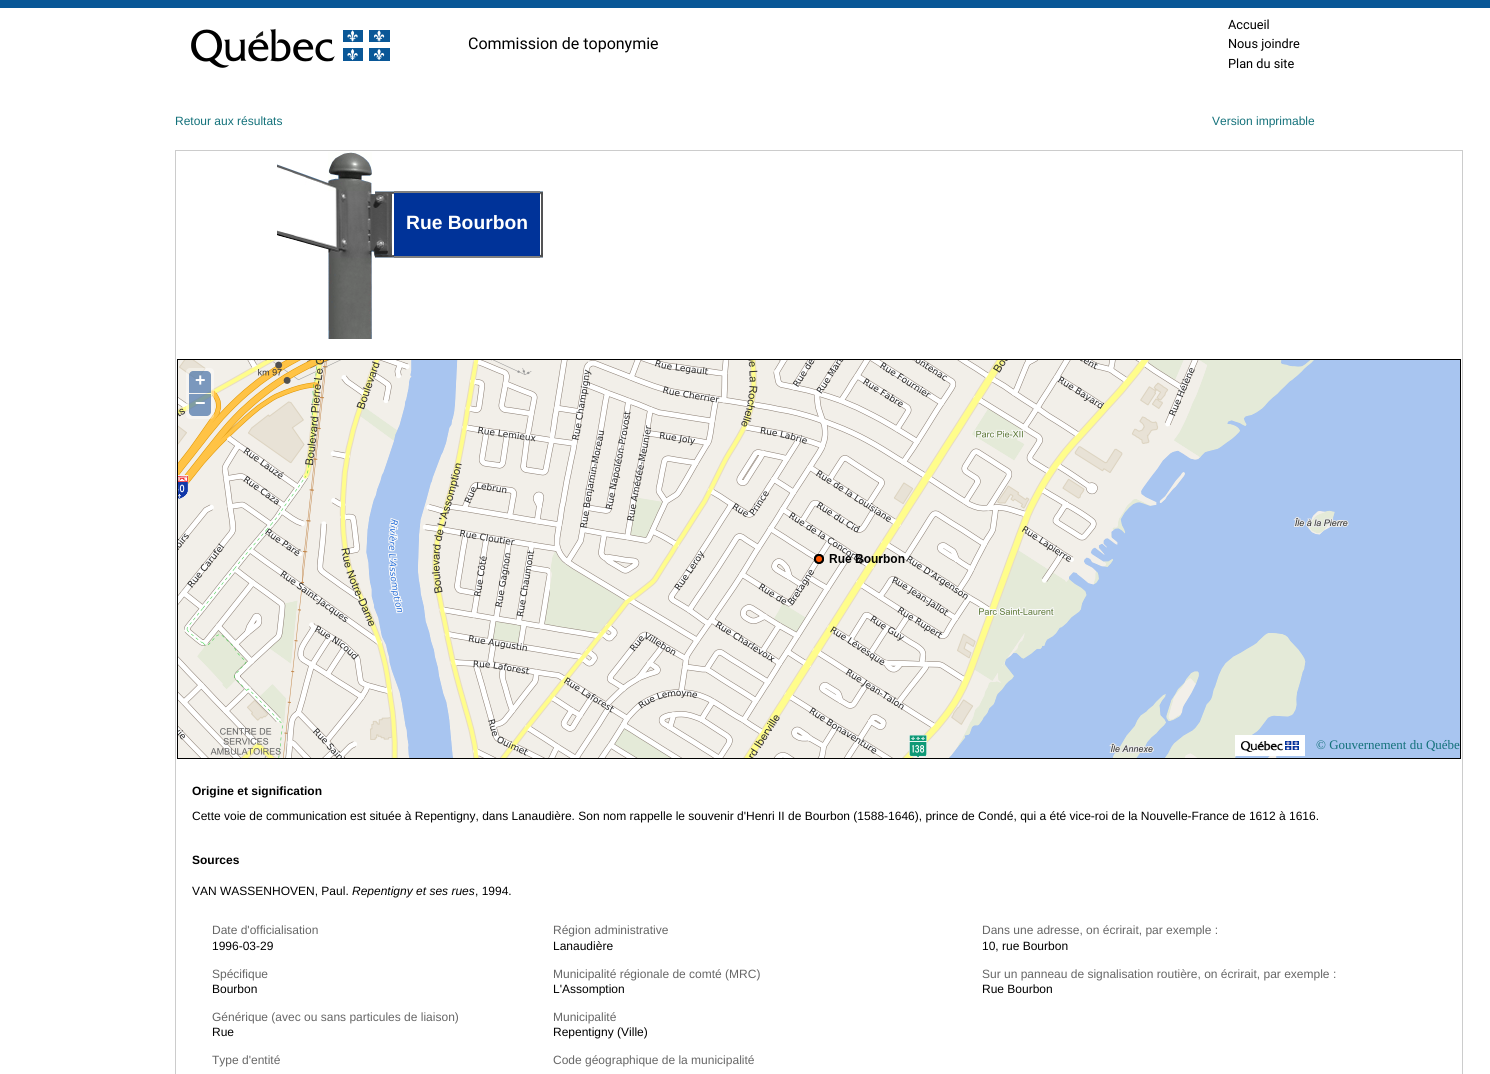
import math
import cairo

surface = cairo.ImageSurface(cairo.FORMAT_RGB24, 1490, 1074)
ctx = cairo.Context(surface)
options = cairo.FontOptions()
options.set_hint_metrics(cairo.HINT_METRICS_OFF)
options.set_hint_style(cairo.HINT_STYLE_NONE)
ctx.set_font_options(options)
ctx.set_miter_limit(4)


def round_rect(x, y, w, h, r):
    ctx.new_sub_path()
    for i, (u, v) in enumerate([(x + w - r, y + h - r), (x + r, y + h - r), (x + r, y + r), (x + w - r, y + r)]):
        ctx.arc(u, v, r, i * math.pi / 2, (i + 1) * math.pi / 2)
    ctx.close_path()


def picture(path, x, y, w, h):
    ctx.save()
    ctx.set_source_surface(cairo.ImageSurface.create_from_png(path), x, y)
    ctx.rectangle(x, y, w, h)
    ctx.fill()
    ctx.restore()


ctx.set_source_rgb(1, 1, 1)
ctx.paint()
ctx.set_source_rgb(0.035, 0.341, 0.592)
ctx.rectangle(0, 0, 1490, 8)
ctx.fill()
picture("img1.png", 191, 28, 199, 40)
ctx.select_font_face("Roboto")
ctx.set_font_size(16)
ctx.set_source_rgb(0, 0, 0)
ctx.move_to(468, 49)
ctx.show_text("Commission de toponymie")
ctx.set_font_size(12.75)
ctx.move_to(1228, 29)
ctx.show_text("Accueil")
ctx.move_to(1228, 48)
ctx.show_text("Nous joindre")
ctx.move_to(1228, 68)
ctx.show_text("Plan du site")
ctx.select_font_face("Liberation Sans")
ctx.set_font_size(12)
ctx.set_source_rgb(0.075, 0.443, 0.478)
ctx.move_to(175, 125)
ctx.show_text("Retour aux résultats")
ctx.move_to(1212, 125)
ctx.show_text("Version imprimable")
ctx.set_source_rgb(0.8, 0.8, 0.8)
ctx.rectangle(175, 150, 1288, 1)
ctx.fill()
ctx.rectangle(1462, 150, 1, 924)
ctx.fill()
ctx.rectangle(175, 150, 1, 924)
ctx.fill()
picture("img2.png", 277, 164, 51, 22)
picture("img3.png", 328, 152, 44, 39)
picture("img4.png", 328, 191, 44, 67)
picture("img5.png", 372, 191, 21, 67)
picture("img6.png", 393, 191, 1, 67)
ctx.set_source_rgb(0, 0.2, 0.6)
ctx.rectangle(394, 193, 146, 63)
ctx.fill()
ctx.set_source_rgb(0.502, 0.502, 0.502)
ctx.rectangle(394, 191, 146, 2)
ctx.fill()
ctx.rectangle(394, 256, 146, 2)
ctx.fill()
ctx.select_font_face("Liberation Sans", cairo.FONT_SLANT_NORMAL, cairo.FONT_WEIGHT_BOLD)
ctx.set_font_size(19.25)
ctx.set_source_rgb(1, 1, 1)
ctx.move_to(406, 229)
ctx.show_text("Rue Bourbon")
picture("img7.png", 540, 191, 3, 67)
picture("img8.png", 277, 230, 51, 20)
picture("img9.png", 328, 258, 44, 81)
ctx.rectangle(177.5, 359.5, 1283, 399)
ctx.set_source_rgb(0, 0, 0)
ctx.set_line_width(1)
ctx.stroke()
picture("img10.png", 178, 360, 116, 182)
ctx.set_source_rgba(1, 1, 1, 0.4)
round_rect(186, 368, 28, 51, 4)
ctx.fill()
ctx.set_source_rgba(0, 0.235, 0.533, 0.5)
ctx.new_path()
ctx.move_to(193, 371)
ctx.line_to(207, 371)
ctx.curve_to(209, 371, 211, 373, 211, 375)
ctx.line_to(211, 393)
ctx.line_to(189, 393)
ctx.line_to(189, 375)
ctx.curve_to(189, 373, 191, 371, 193, 371)
ctx.close_path()
ctx.fill()
ctx.set_font_size(18)
ctx.set_source_rgb(1, 1, 1)
ctx.move_to(195, 386)
ctx.show_text("+")
ctx.set_source_rgba(0, 0.235, 0.533, 0.5)
ctx.new_path()
ctx.move_to(189, 394)
ctx.line_to(211, 394)
ctx.line_to(211, 412)
ctx.curve_to(211, 414, 209, 416, 207, 416)
ctx.line_to(193, 416)
ctx.curve_to(191, 416, 189, 414, 189, 412)
ctx.close_path()
ctx.fill()
ctx.set_source_rgb(1, 1, 1)
ctx.move_to(195, 409)
ctx.show_text("−")
picture("img11.png", 294, 360, 256, 182)
picture("img12.png", 550, 360, 256, 182)
picture("img13.png", 806, 360, 256, 182)
picture("img14.png", 1062, 360, 256, 182)
picture("img15.png", 1318, 360, 142, 182)
picture("img16.png", 178, 542, 116, 216)
picture("img17.png", 294, 542, 256, 216)
picture("img18.png", 550, 542, 256, 216)
picture("img19.png", 806, 542, 256, 216)
picture("img20.png", 1062, 542, 256, 216)
ctx.set_source_rgb(0.659, 0.773, 0.941)
ctx.rectangle(1318, 542, 142, 216)
ctx.fill()
ctx.set_source_rgb(1, 0.333, 0)
ctx.arc(819, 559, 4, 0, 2 * math.pi)
ctx.fill_preserve()
ctx.set_source_rgb(0, 0, 0)
ctx.set_line_width(2)
ctx.stroke()
ctx.set_font_size(12)
ctx.move_to(878, 563)
ctx.show_text("r")
picture("img21.png", 1235, 735, 70, 21)
ctx.select_font_face("Liberation Serif")
ctx.set_font_size(13)
ctx.set_source_rgb(0.075, 0.443, 0.478)
ctx.move_to(1316, 749)
ctx.show_text("© Gouvernement du Québe")
ctx.select_font_face("Liberation Sans", cairo.FONT_SLANT_NORMAL, cairo.FONT_WEIGHT_BOLD)
ctx.set_font_size(12)
ctx.set_source_rgb(0, 0, 0)
ctx.move_to(192, 795)
ctx.show_text("Origine et signification")
ctx.select_font_face("Liberation Sans")
ctx.move_to(192, 820)
ctx.show_text("Cette voie de communication est située à Repentigny, dans Lanaudière. Son nom rappelle le souvenir d'Henri II de Bourbon (1588-1646), prince de Condé, qui a été vice-roi de la Nouvelle-France de 1612 à 1616.")
ctx.select_font_face("Liberation Sans", cairo.FONT_SLANT_NORMAL, cairo.FONT_WEIGHT_BOLD)
ctx.move_to(192, 864)
ctx.show_text("Sources")
ctx.select_font_face("Liberation Sans")
ctx.move_to(192, 895)
ctx.show_text("VAN WASSENHOVEN, Paul.")
ctx.select_font_face("Liberation Sans", cairo.FONT_SLANT_ITALIC)
ctx.move_to(352, 895)
ctx.show_text("Repentigny et ses rues")
ctx.select_font_face("Liberation Sans")
ctx.move_to(475, 895)
ctx.show_text(", 1994.")
ctx.set_source_rgb(0.4, 0.4, 0.4)
ctx.move_to(212, 934)
ctx.show_text("Date d'officialisation")
ctx.set_source_rgb(0, 0, 0)
ctx.move_to(212, 950)
ctx.show_text("1996-03-29")
ctx.set_source_rgb(0.4, 0.4, 0.4)
ctx.move_to(212, 978)
ctx.show_text("Spécifique")
ctx.set_source_rgb(0, 0, 0)
ctx.move_to(212, 993)
ctx.show_text("Bourbon")
ctx.set_source_rgb(0.4, 0.4, 0.4)
ctx.move_to(212, 1021)
ctx.show_text("Générique (avec ou sans particules de liaison)")
ctx.set_source_rgb(0, 0, 0)
ctx.move_to(212, 1036)
ctx.show_text("Rue")
ctx.set_source_rgb(0.4, 0.4, 0.4)
ctx.move_to(212, 1064)
ctx.show_text("Type d'entité")
ctx.move_to(553, 934)
ctx.show_text("Région administrative")
ctx.set_source_rgb(0, 0, 0)
ctx.move_to(553, 950)
ctx.show_text("Lanaudière")
ctx.set_source_rgb(0.4, 0.4, 0.4)
ctx.move_to(553, 978)
ctx.show_text("Municipalité régionale de comté (MRC)")
ctx.set_source_rgb(0, 0, 0)
ctx.move_to(553, 993)
ctx.show_text("L'Assomption")
ctx.set_source_rgb(0.4, 0.4, 0.4)
ctx.move_to(553, 1021)
ctx.show_text("Municipalité")
ctx.set_source_rgb(0, 0, 0)
ctx.move_to(553, 1036)
ctx.show_text("Repentigny (Ville)")
ctx.set_source_rgb(0.4, 0.4, 0.4)
ctx.move_to(553, 1064)
ctx.show_text("Code géographique de la municipalité")
ctx.move_to(982, 934)
ctx.show_text("Dans une adresse, on écrirait, par exemple :")
ctx.set_source_rgb(0, 0, 0)
ctx.move_to(982, 950)
ctx.show_text("10, rue Bourbon")
ctx.set_source_rgb(0.4, 0.4, 0.4)
ctx.move_to(982, 978)
ctx.show_text("Sur un panneau de signalisation routière, on écrirait, par exemple :")
ctx.set_source_rgb(0, 0, 0)
ctx.move_to(982, 993)
ctx.show_text("Rue Bourbon")
surface.write_to_png("page.png")
